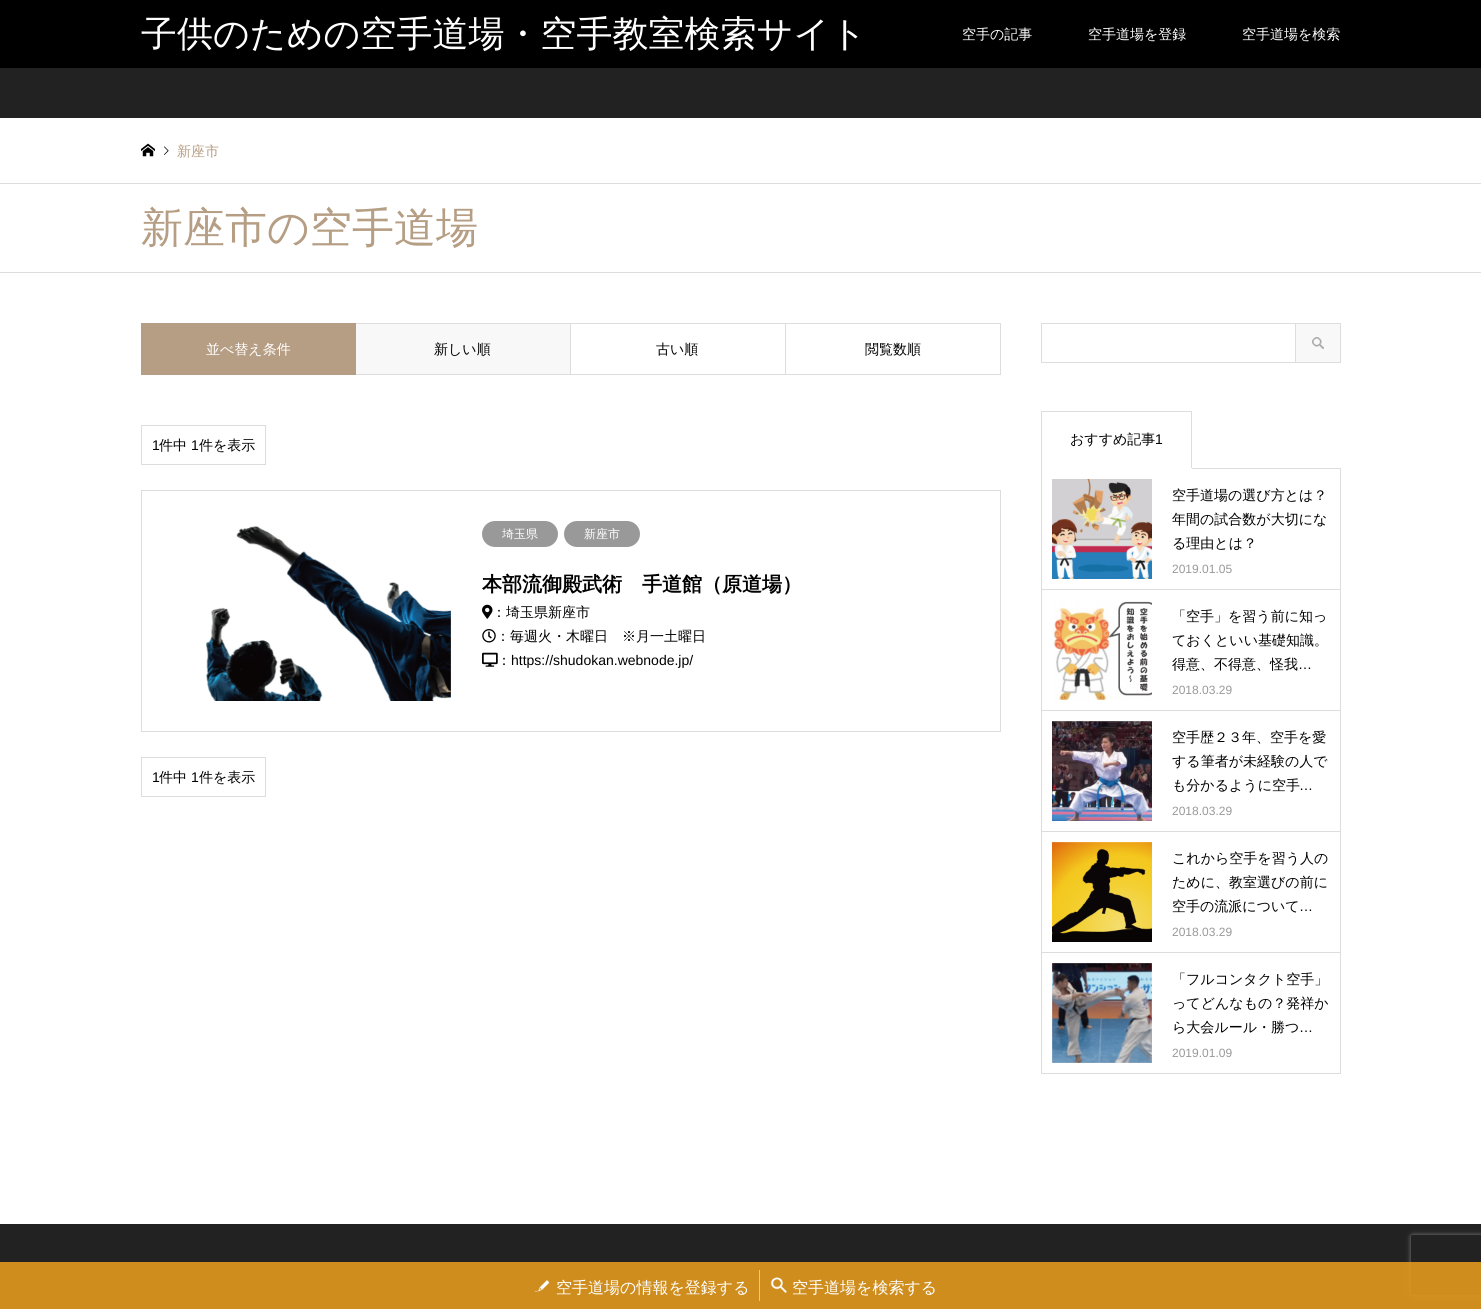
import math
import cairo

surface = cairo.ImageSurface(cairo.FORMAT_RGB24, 1481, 1309)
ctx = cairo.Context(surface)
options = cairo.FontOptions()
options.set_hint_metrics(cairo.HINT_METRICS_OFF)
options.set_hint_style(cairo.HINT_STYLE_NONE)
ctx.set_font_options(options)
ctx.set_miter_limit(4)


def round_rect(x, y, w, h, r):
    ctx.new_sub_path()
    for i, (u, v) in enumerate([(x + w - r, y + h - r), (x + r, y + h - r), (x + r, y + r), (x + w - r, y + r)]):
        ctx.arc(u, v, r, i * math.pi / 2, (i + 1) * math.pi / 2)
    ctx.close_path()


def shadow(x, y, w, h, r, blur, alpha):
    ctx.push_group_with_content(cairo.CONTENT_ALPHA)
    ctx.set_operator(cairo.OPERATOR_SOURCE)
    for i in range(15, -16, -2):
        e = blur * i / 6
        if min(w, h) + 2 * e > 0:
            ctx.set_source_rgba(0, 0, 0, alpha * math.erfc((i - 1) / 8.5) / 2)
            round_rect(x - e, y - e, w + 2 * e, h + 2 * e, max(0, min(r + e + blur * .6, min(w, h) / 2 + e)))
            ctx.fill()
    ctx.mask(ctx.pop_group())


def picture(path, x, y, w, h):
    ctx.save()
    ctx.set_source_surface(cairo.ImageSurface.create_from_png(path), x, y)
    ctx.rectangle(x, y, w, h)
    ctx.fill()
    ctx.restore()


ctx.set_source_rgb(1, 1, 1)
ctx.paint()
ctx.set_source_rgb(0, 0, 0)
ctx.rectangle(0, 0, 1481, 68)
ctx.fill()
ctx.select_font_face("WenQuanYi Zen Hei Medium")
ctx.set_font_size(36)
ctx.set_source_rgb(1, 1, 1)
ctx.move_to(141, 46)
ctx.show_text("子供のための空手道場・空手教室検索サイト")
ctx.set_font_size(14)
ctx.move_to(962, 39)
ctx.show_text("空手の記事")
ctx.move_to(1088, 39)
ctx.show_text("空手道場を登録")
ctx.move_to(1242, 39)
ctx.show_text("空手道場を検索")
ctx.set_source_rgb(0.133, 0.133, 0.133)
ctx.rectangle(0, 68, 1481, 50)
ctx.fill()
ctx.set_source_rgb(0.867, 0.867, 0.867)
ctx.rectangle(0, 183, 1481, 1)
ctx.fill()
picture("img1.png", 141, 143, 14, 14)
picture("img2.png", 164, 146, 5, 9)
ctx.set_source_rgb(0.714, 0.62, 0.518)
ctx.move_to(177, 156)
ctx.show_text("新座市")
ctx.set_source_rgb(0.867, 0.867, 0.867)
ctx.rectangle(0, 272, 1481, 1)
ctx.fill()
ctx.set_font_size(42)
ctx.set_source_rgb(0.714, 0.62, 0.518)
ctx.move_to(141, 242)
ctx.show_text("新座市の空手道場")
ctx.rectangle(141, 323, 215, 52)
ctx.fill()
ctx.set_font_size(14)
ctx.set_source_rgb(1, 1, 1)
ctx.move_to(206, 354)
ctx.show_text("並べ替え条件")
ctx.set_source_rgb(0.969, 0.969, 0.969)
ctx.rectangle(356, 324, 214, 50)
ctx.fill()
ctx.set_source_rgb(0.867, 0.867, 0.867)
ctx.rectangle(356, 323, 645, 1)
ctx.fill()
ctx.rectangle(570, 323, 1, 52)
ctx.fill()
ctx.rectangle(356, 374, 215, 1)
ctx.fill()
ctx.set_source_rgb(0, 0, 0)
ctx.move_to(434, 354)
ctx.show_text("新しい順")
ctx.set_source_rgb(0.867, 0.867, 0.867)
ctx.rectangle(785, 323, 1, 52)
ctx.fill()
ctx.rectangle(571, 374, 215, 1)
ctx.fill()
ctx.set_source_rgb(0, 0, 0)
ctx.move_to(656, 354)
ctx.show_text("古い順")
ctx.set_source_rgb(0.867, 0.867, 0.867)
ctx.rectangle(1000, 323, 1, 52)
ctx.fill()
ctx.rectangle(786, 374, 215, 1)
ctx.fill()
ctx.set_source_rgb(0, 0, 0)
ctx.move_to(865, 354)
ctx.show_text("閲覧数順")
ctx.rectangle(141.5, 425.5, 124, 39)
ctx.set_source_rgb(0.867, 0.867, 0.867)
ctx.set_line_width(1)
ctx.stroke()
ctx.select_font_face("Liberation Sans")
ctx.set_source_rgb(0, 0, 0)
ctx.move_to(152, 450)
ctx.show_text("1")
ctx.select_font_face("WenQuanYi Zen Hei Medium")
ctx.move_to(159, 450)
ctx.show_text("件中")
ctx.select_font_face("Liberation Sans")
ctx.move_to(191, 450)
ctx.show_text("1")
ctx.select_font_face("WenQuanYi Zen Hei Medium")
ctx.move_to(199, 450)
ctx.show_text("件を表示")
ctx.rectangle(141.5, 490.5, 859, 241)
ctx.set_source_rgb(0.867, 0.867, 0.867)
ctx.stroke()
picture("img3.png", 206, 526, 245, 175)
ctx.set_source_rgb(0.6, 0.6, 0.6)
round_rect(482, 521, 76, 26, 13)
ctx.fill()
ctx.set_font_size(12)
ctx.set_source_rgb(1, 1, 1)
ctx.move_to(502, 538)
ctx.show_text("埼玉県")
ctx.set_source_rgb(0.6, 0.6, 0.6)
round_rect(564, 521, 76, 26, 13)
ctx.fill()
ctx.set_source_rgb(1, 1, 1)
ctx.move_to(584, 538)
ctx.show_text("新座市")
ctx.select_font_face("WenQuanYi Zen Hei", cairo.FONT_SLANT_NORMAL, cairo.FONT_WEIGHT_BOLD)
ctx.set_font_size(20)
ctx.set_source_rgb(0, 0, 0)
ctx.move_to(482, 591)
ctx.show_text("本部流御殿武術　手道館（原道場）")
picture("img4.png", 482, 604, 11, 15)
ctx.select_font_face("WenQuanYi Zen Hei Medium")
ctx.set_font_size(14)
ctx.move_to(492, 617)
ctx.show_text("：埼玉県新座市")
picture("img5.png", 482, 629, 14, 14)
ctx.move_to(496, 641)
ctx.show_text("：毎週火・木曜日　※月一土曜日")
picture("img6.png", 482, 652, 16, 15)
ctx.move_to(497, 665)
ctx.show_text("：")
ctx.select_font_face("Liberation Sans")
ctx.move_to(511, 665)
ctx.show_text("https://shudokan.webnode.jp/")
ctx.rectangle(141.5, 757.5, 124, 39)
ctx.set_source_rgb(0.867, 0.867, 0.867)
ctx.stroke()
ctx.set_source_rgb(0, 0, 0)
ctx.move_to(152, 782)
ctx.show_text("1")
ctx.select_font_face("WenQuanYi Zen Hei Medium")
ctx.move_to(159, 782)
ctx.show_text("件中")
ctx.select_font_face("Liberation Sans")
ctx.move_to(191, 782)
ctx.show_text("1")
ctx.select_font_face("WenQuanYi Zen Hei Medium")
ctx.move_to(199, 782)
ctx.show_text("件を表示")
ctx.rectangle(1041.5, 323.5, 254, 39)
ctx.set_source_rgb(0.867, 0.867, 0.867)
ctx.stroke()
ctx.set_source_rgb(0.969, 0.969, 0.969)
ctx.rectangle(1296, 324, 44, 38)
ctx.fill()
picture("img7.png", 1312, 337, 12, 12)
ctx.set_source_rgb(0.867, 0.867, 0.867)
ctx.rectangle(1296, 323, 45, 1)
ctx.fill()
ctx.rectangle(1340, 323, 1, 40)
ctx.fill()
ctx.rectangle(1296, 362, 45, 1)
ctx.fill()
ctx.rectangle(1042, 411, 150, 1)
ctx.fill()
ctx.rectangle(1191, 411, 1, 58)
ctx.fill()
ctx.set_source_rgb(1, 1, 1)
ctx.rectangle(1191, 468, 1, 1)
ctx.fill()
ctx.set_source_rgb(0, 0, 0)
ctx.move_to(1070, 444)
ctx.show_text("おすすめ記事")
ctx.select_font_face("Liberation Sans")
ctx.move_to(1155, 444)
ctx.show_text("1")
ctx.set_source_rgb(0.867, 0.867, 0.867)
ctx.rectangle(1192, 468, 149, 1)
ctx.fill()
ctx.rectangle(1340, 468, 1, 606)
ctx.fill()
ctx.rectangle(1041, 411, 1, 663)
ctx.fill()
ctx.rectangle(1042, 589, 298, 1)
ctx.fill()
picture("img8.png", 1052, 479, 100, 100)
ctx.select_font_face("WenQuanYi Zen Hei Medium")
ctx.set_source_rgb(0, 0, 0)
ctx.move_to(1172, 500)
ctx.show_text("空手道場の選び方とは？")
ctx.move_to(1172, 524)
ctx.show_text("年間の試合数が大切にな")
ctx.move_to(1172, 548)
ctx.show_text("る理由とは？")
ctx.select_font_face("Liberation Sans")
ctx.set_font_size(12)
ctx.set_source_rgb(0.6, 0.6, 0.6)
ctx.move_to(1172, 573)
ctx.show_text("2019.01.05")
ctx.set_source_rgb(0.867, 0.867, 0.867)
ctx.rectangle(1042, 710, 298, 1)
ctx.fill()
picture("img9.png", 1053, 601, 99, 99)
ctx.select_font_face("WenQuanYi Zen Hei Medium")
ctx.set_font_size(14)
ctx.set_source_rgb(0, 0, 0)
ctx.move_to(1172, 621)
ctx.show_text("「空手」を習う前に知っ")
ctx.move_to(1172, 645)
ctx.show_text("ておくといい基礎知識。")
ctx.move_to(1172, 669)
ctx.show_text("得意、不得意、怪我")
ctx.select_font_face("Liberation Sans")
ctx.move_to(1298, 669)
ctx.show_text("…")
ctx.set_font_size(12)
ctx.set_source_rgb(0.6, 0.6, 0.6)
ctx.move_to(1172, 694)
ctx.show_text("2018.03.29")
ctx.set_source_rgb(0.867, 0.867, 0.867)
ctx.rectangle(1042, 831, 298, 1)
ctx.fill()
picture("img10.png", 1052, 721, 100, 100)
ctx.select_font_face("WenQuanYi Zen Hei Medium")
ctx.set_font_size(14)
ctx.set_source_rgb(0, 0, 0)
ctx.move_to(1172, 742)
ctx.show_text("空手歴２３年、空手を愛")
ctx.move_to(1172, 766)
ctx.show_text("する筆者が未経験の人で")
ctx.move_to(1172, 790)
ctx.show_text("も分かるように空手")
ctx.select_font_face("Liberation Sans")
ctx.move_to(1299, 790)
ctx.show_text("…")
ctx.set_font_size(12)
ctx.set_source_rgb(0.6, 0.6, 0.6)
ctx.move_to(1172, 815)
ctx.show_text("2018.03.29")
ctx.set_source_rgb(0.867, 0.867, 0.867)
ctx.rectangle(1042, 952, 298, 1)
ctx.fill()
picture("img11.png", 1052, 842, 100, 100)
ctx.select_font_face("WenQuanYi Zen Hei Medium")
ctx.set_font_size(14)
ctx.set_source_rgb(0, 0, 0)
ctx.move_to(1172, 863)
ctx.show_text("これから空手を習う人の")
ctx.move_to(1172, 887)
ctx.show_text("ために、教室選びの前に")
ctx.move_to(1172, 911)
ctx.show_text("空手の流派について")
ctx.select_font_face("Liberation Sans")
ctx.move_to(1299, 911)
ctx.show_text("…")
ctx.set_font_size(12)
ctx.set_source_rgb(0.6, 0.6, 0.6)
ctx.move_to(1172, 936)
ctx.show_text("2018.03.29")
ctx.set_source_rgb(0.867, 0.867, 0.867)
ctx.rectangle(1042, 1073, 298, 1)
ctx.fill()
picture("img12.png", 1052, 963, 100, 100)
ctx.select_font_face("WenQuanYi Zen Hei Medium")
ctx.set_font_size(14)
ctx.set_source_rgb(0, 0, 0)
ctx.move_to(1172, 984)
ctx.show_text("「フルコンタクト空手」")
ctx.move_to(1172, 1008)
ctx.show_text("ってどんなもの？発祥か")
ctx.move_to(1172, 1032)
ctx.show_text("ら大会ルール・勝つ")
ctx.select_font_face("Liberation Sans")
ctx.move_to(1299, 1032)
ctx.show_text("…")
ctx.set_font_size(12)
ctx.set_source_rgb(0.6, 0.6, 0.6)
ctx.move_to(1172, 1057)
ctx.show_text("2019.01.09")
ctx.set_source_rgb(0.133, 0.133, 0.133)
ctx.rectangle(0, 1224, 1481, 85)
ctx.fill()
ctx.save()
ctx.set_fill_rule(cairo.FILL_RULE_EVEN_ODD)
ctx.new_path()
ctx.move_to(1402, 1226)
ctx.line_to(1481, 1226)
ctx.line_to(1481, 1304)
ctx.line_to(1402, 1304)
ctx.close_path()
ctx.move_to(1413, 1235)
ctx.line_to(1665, 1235)
ctx.curve_to(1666, 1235, 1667, 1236, 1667, 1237)
ctx.line_to(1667, 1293)
ctx.curve_to(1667, 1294, 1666, 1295, 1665, 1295)
ctx.line_to(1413, 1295)
ctx.curve_to(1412, 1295, 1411, 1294, 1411, 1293)
ctx.line_to(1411, 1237)
ctx.curve_to(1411, 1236, 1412, 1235, 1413, 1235)
ctx.close_path()
ctx.clip()
ctx.set_source_rgb(0.502, 0.502, 0.502)
shadow(1411, 1235, 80, 60, 2, 2.5, 1)
ctx.restore()
ctx.set_source_rgba(0.886, 0.6, 0.118, 0.9)
ctx.rectangle(0, 1262, 1481, 47)
ctx.fill()
picture("img13.png", 534, 1280, 16, 12)
ctx.select_font_face("WenQuanYi Zen Hei Medium")
ctx.set_font_size(16)
ctx.set_source_rgb(1, 1, 1)
ctx.move_to(556, 1293)
ctx.show_text("空手道場の情報を登録する")
ctx.set_source_rgb(0.8, 0.8, 0.8)
ctx.rectangle(759, 1270, 1, 31)
ctx.fill()
picture("img14.png", 770, 1277, 17, 16)
ctx.set_source_rgb(1, 1, 1)
ctx.move_to(792, 1293)
ctx.show_text("空手道場を検索する")
surface.write_to_png("page.png")
